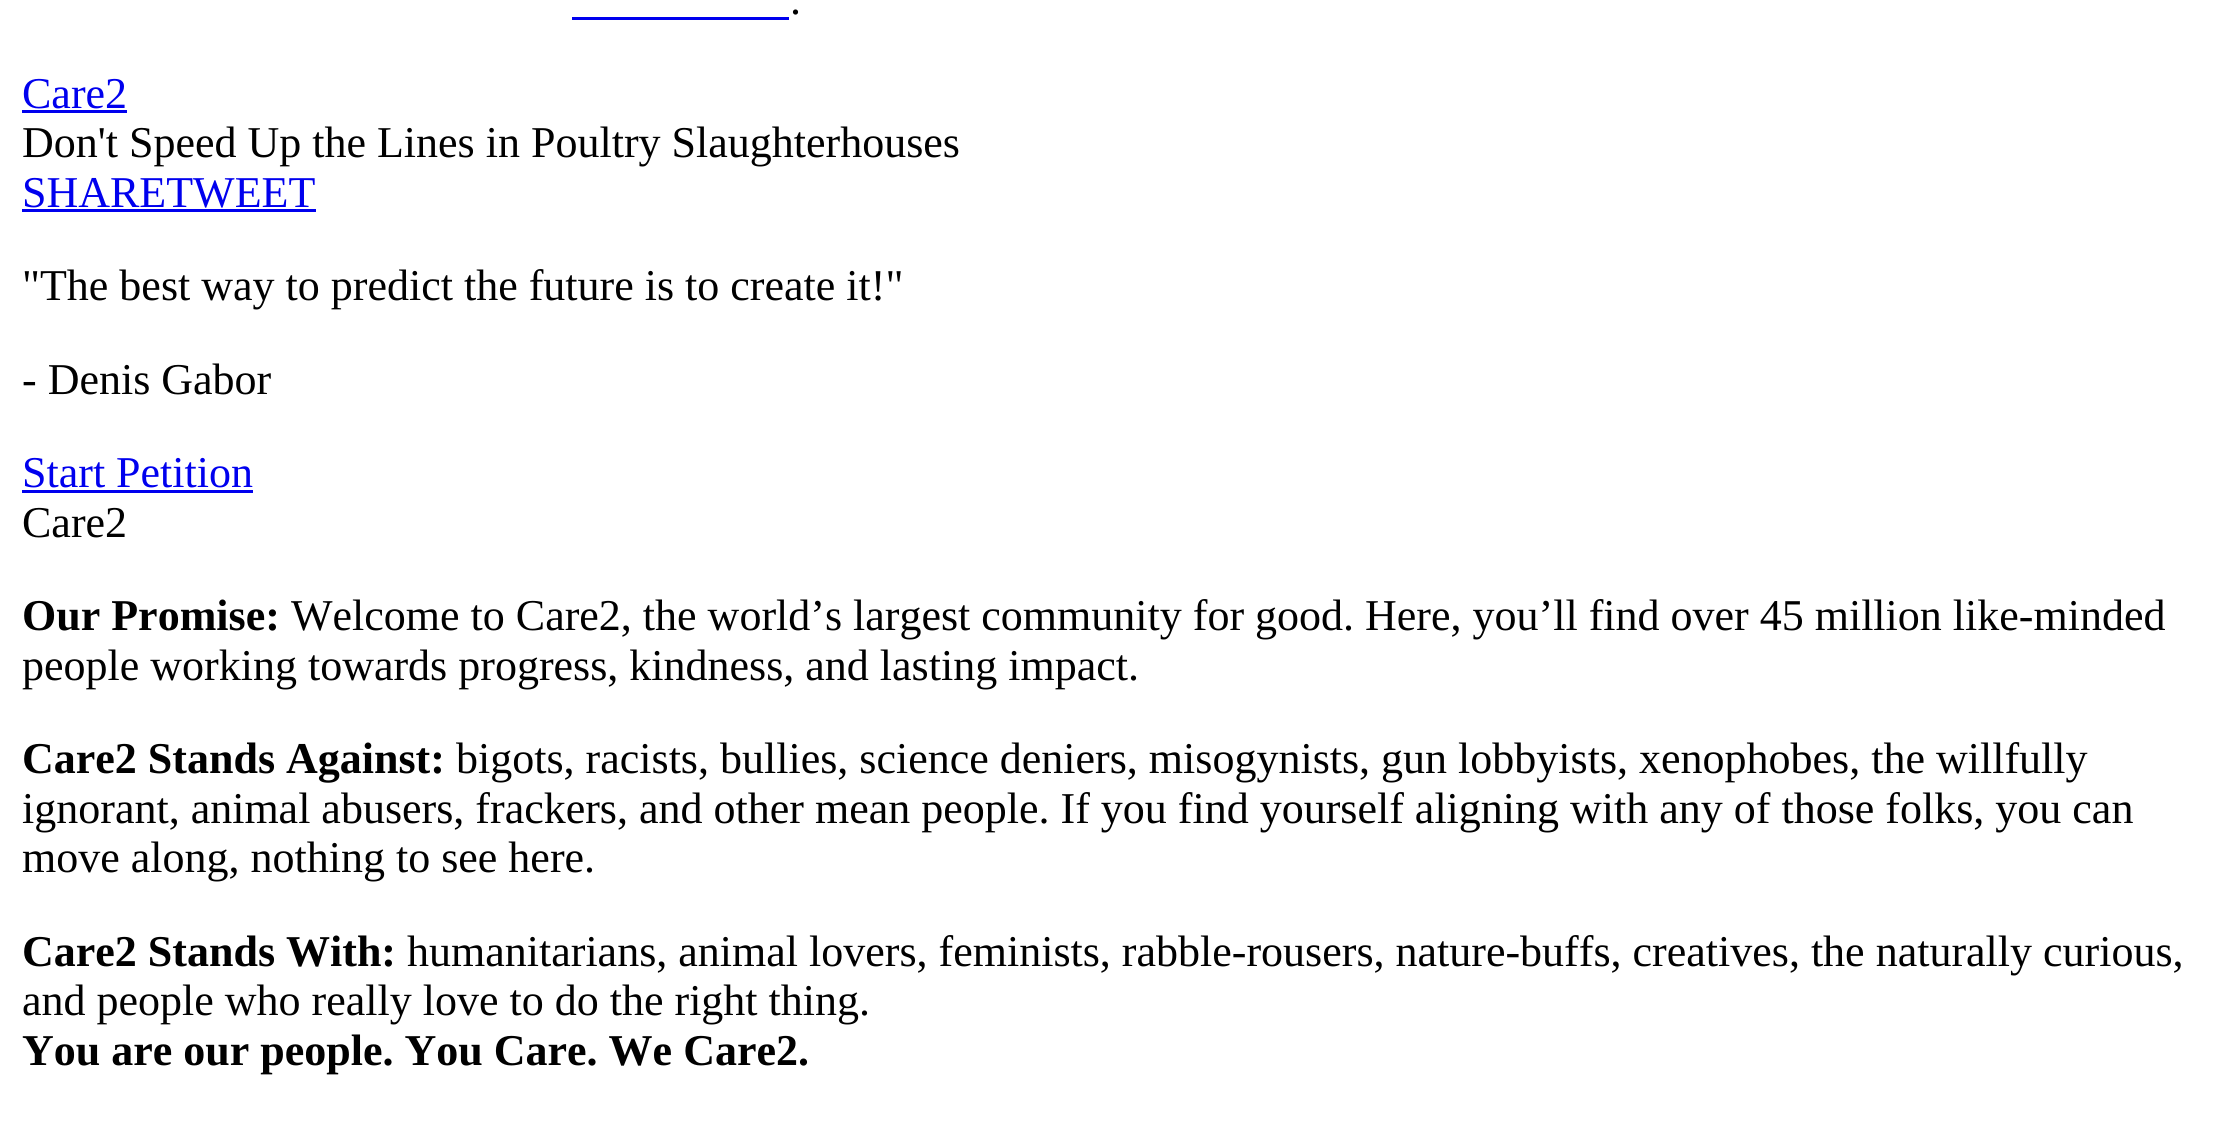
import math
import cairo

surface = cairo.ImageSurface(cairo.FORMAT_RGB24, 2214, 1129)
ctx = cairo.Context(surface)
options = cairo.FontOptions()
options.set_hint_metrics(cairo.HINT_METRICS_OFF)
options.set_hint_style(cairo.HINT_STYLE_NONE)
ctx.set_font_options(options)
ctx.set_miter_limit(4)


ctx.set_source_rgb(1, 1, 1)
ctx.paint()
ctx.select_font_face("Liberation Serif")
ctx.set_font_size(44)
ctx.set_source_rgb(0, 0, 0)
ctx.move_to(790, 14)
ctx.show_text(".")
ctx.set_source_rgb(0, 0, 0.933)
ctx.rectangle(572, 17, 217, 3)
ctx.fill()
ctx.move_to(22, 108)
ctx.show_text("Care2")
ctx.rectangle(22, 110, 105, 3)
ctx.fill()
ctx.set_source_rgb(0, 0, 0)
ctx.move_to(22, 157)
ctx.show_text("Don't Speed Up the Lines in Poultry Slaughterhouses")
ctx.set_source_rgb(0, 0, 0.933)
ctx.move_to(22, 207)
ctx.show_text("SHARETWEET")
ctx.rectangle(22, 209, 294, 3)
ctx.fill()
ctx.set_source_rgb(0, 0, 0)
ctx.move_to(22, 300)
ctx.show_text("\"The best way to predict the future is to create it!\"")
ctx.move_to(22, 394)
ctx.show_text("- Denis Gabor")
ctx.set_source_rgb(0, 0, 0.933)
ctx.move_to(22, 487)
ctx.show_text("Start Petition")
ctx.rectangle(22, 490, 231, 3)
ctx.fill()
ctx.set_source_rgb(0, 0, 0)
ctx.move_to(22, 537)
ctx.show_text("Care2")
ctx.select_font_face("Liberation Serif", cairo.FONT_SLANT_NORMAL, cairo.FONT_WEIGHT_BOLD)
ctx.move_to(22, 630)
ctx.show_text("Our Promise:")
ctx.select_font_face("Liberation Serif")
ctx.move_to(291, 630)
ctx.show_text("Welcome to Care2, the world’s largest community for good. Here, you’ll find over 45 million like-minded")
ctx.move_to(22, 680)
ctx.show_text("people working towards progress, kindness, and lasting impact.")
ctx.select_font_face("Liberation Serif", cairo.FONT_SLANT_NORMAL, cairo.FONT_WEIGHT_BOLD)
ctx.move_to(22, 773)
ctx.show_text("Care2 Stands Against:")
ctx.select_font_face("Liberation Serif")
ctx.move_to(456, 773)
ctx.show_text("bigots, racists, bullies, science deniers, misogynists, gun lobbyists, xenophobes, the willfully")
ctx.move_to(22, 823)
ctx.show_text("ignorant, animal abusers, frackers, and other mean people. If you find yourself aligning with any of those folks, you can")
ctx.move_to(22, 872)
ctx.show_text("move along, nothing to see here.")
ctx.select_font_face("Liberation Serif", cairo.FONT_SLANT_NORMAL, cairo.FONT_WEIGHT_BOLD)
ctx.move_to(22, 966)
ctx.show_text("Care2 Stands With:")
ctx.select_font_face("Liberation Serif")
ctx.move_to(407, 966)
ctx.show_text("humanitarians, animal lovers, feminists, rabble-rousers, nature-buffs, creatives, the naturally curious,")
ctx.move_to(22, 1015)
ctx.show_text("and people who really love to do the right thing.")
ctx.select_font_face("Liberation Serif", cairo.FONT_SLANT_NORMAL, cairo.FONT_WEIGHT_BOLD)
ctx.move_to(22, 1065)
ctx.show_text("You are our people. You Care. We Care2.")
surface.write_to_png("page.png")
